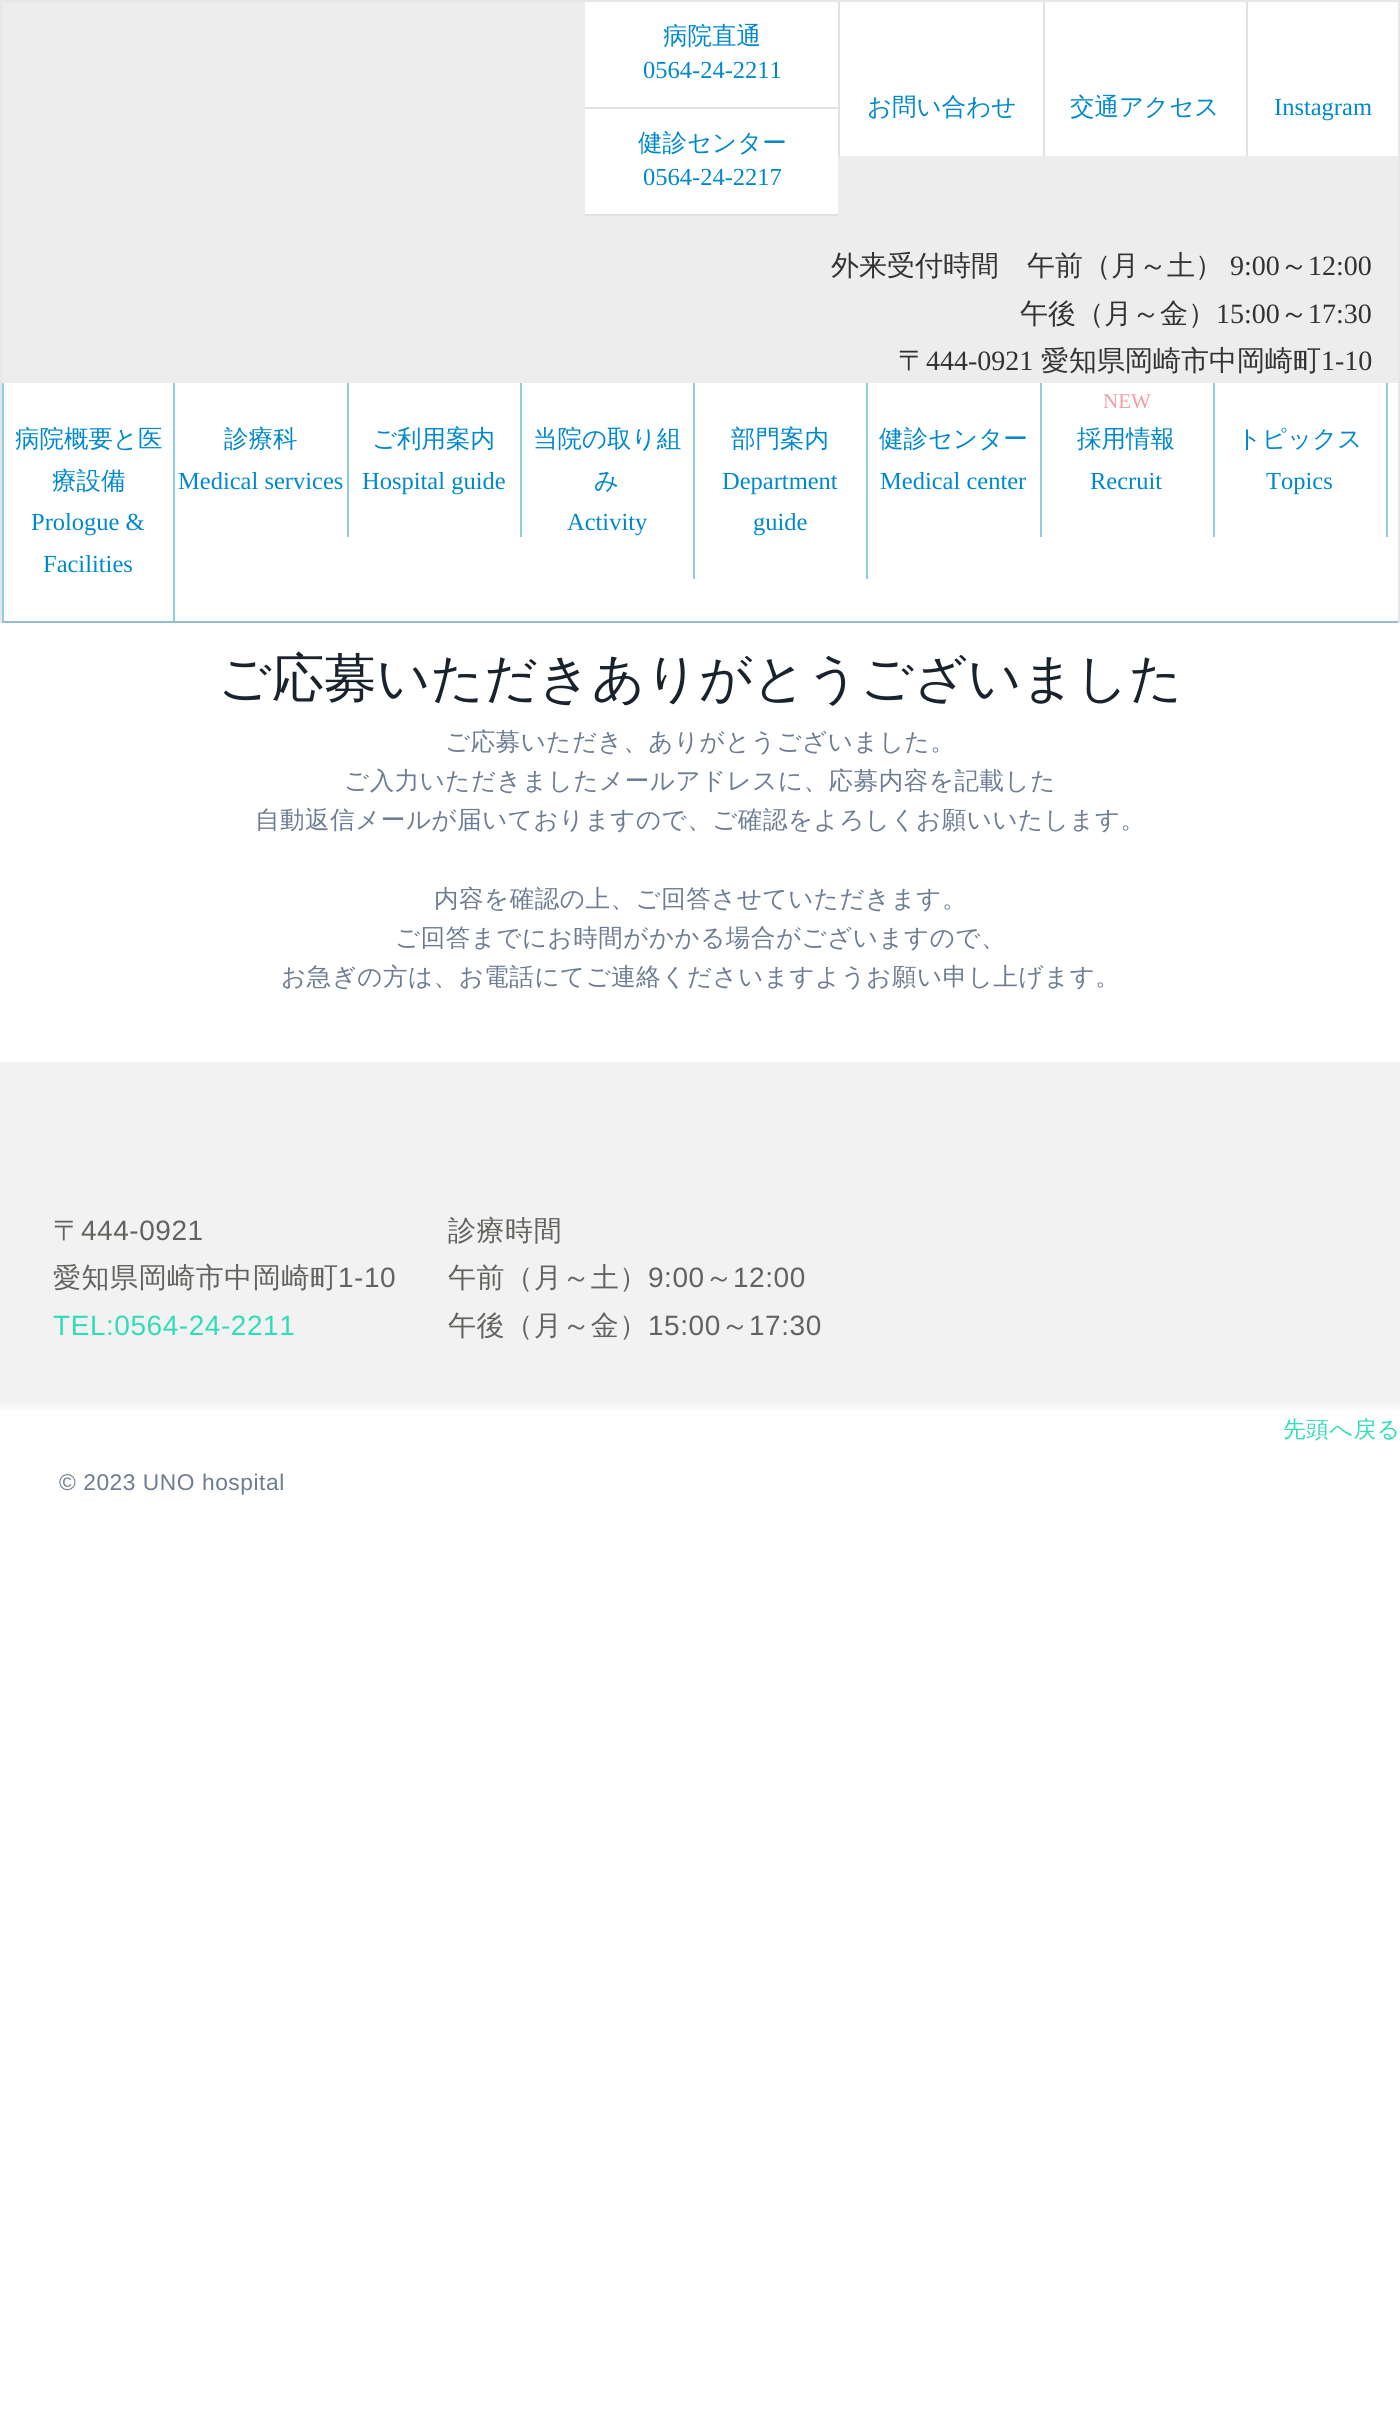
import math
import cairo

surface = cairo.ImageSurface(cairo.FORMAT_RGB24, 1400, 2410)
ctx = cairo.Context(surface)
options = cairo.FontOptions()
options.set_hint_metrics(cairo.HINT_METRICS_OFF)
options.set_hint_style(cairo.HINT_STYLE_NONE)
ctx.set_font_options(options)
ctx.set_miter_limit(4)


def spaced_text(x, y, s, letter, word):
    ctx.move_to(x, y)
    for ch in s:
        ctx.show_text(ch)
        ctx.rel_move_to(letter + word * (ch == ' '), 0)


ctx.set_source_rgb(1, 1, 1)
ctx.paint()
ctx.set_source_rgb(0.906, 0.906, 0.906)
ctx.rectangle(0, 0, 1400, 2)
ctx.fill()
ctx.rectangle(1398, 0, 2, 623)
ctx.fill()
ctx.rectangle(0, 0, 2, 623)
ctx.fill()
ctx.set_source_rgb(0.929, 0.929, 0.929)
ctx.rectangle(2, 2, 1396, 381)
ctx.fill()
ctx.set_source_rgb(1, 1, 1)
ctx.rectangle(585, 2, 253, 105)
ctx.fill()
ctx.set_source_rgb(0.882, 0.882, 0.882)
ctx.rectangle(585, 107, 253, 2)
ctx.fill()
ctx.select_font_face("WenQuanYi Zen Hei Medium")
ctx.set_font_size(24.5)
ctx.set_source_rgb(0, 0.533, 0.8)
ctx.move_to(663, 44)
ctx.show_text("病院直通")
ctx.select_font_face("Liberation Serif")
ctx.move_to(643, 78)
ctx.show_text("0564-24-2211")
ctx.set_source_rgb(1, 1, 1)
ctx.rectangle(585, 109, 253, 105)
ctx.fill()
ctx.set_source_rgb(0.882, 0.882, 0.882)
ctx.rectangle(585, 214, 253, 2)
ctx.fill()
ctx.select_font_face("WenQuanYi Zen Hei Medium")
ctx.set_source_rgb(0, 0.533, 0.8)
ctx.move_to(638, 151)
ctx.show_text("健診センター")
ctx.select_font_face("Liberation Serif")
ctx.move_to(643, 185)
ctx.show_text("0564-24-2217")
ctx.set_source_rgb(1, 1, 1)
ctx.rectangle(840, 2, 203, 154)
ctx.fill()
ctx.set_source_rgb(0.882, 0.882, 0.882)
ctx.rectangle(838, 2, 2, 154)
ctx.fill()
ctx.select_font_face("WenQuanYi Zen Hei Medium")
ctx.set_source_rgb(0, 0.533, 0.8)
ctx.move_to(867, 115)
ctx.show_text("お問い合わせ")
ctx.set_source_rgb(1, 1, 1)
ctx.rectangle(1045, 2, 201, 154)
ctx.fill()
ctx.set_source_rgb(0.882, 0.882, 0.882)
ctx.rectangle(1043, 2, 2, 154)
ctx.fill()
ctx.set_source_rgb(0, 0.533, 0.8)
ctx.move_to(1070, 115)
ctx.show_text("交通アクセス")
ctx.set_source_rgb(1, 1, 1)
ctx.rectangle(1248, 2, 150, 154)
ctx.fill()
ctx.set_source_rgb(0.882, 0.882, 0.882)
ctx.rectangle(1246, 2, 2, 154)
ctx.fill()
ctx.select_font_face("Liberation Serif")
ctx.set_source_rgb(0, 0.533, 0.8)
ctx.move_to(1274, 115)
ctx.show_text("Instagram")
ctx.select_font_face("WenQuanYi Zen Hei Medium")
ctx.set_font_size(28)
ctx.set_source_rgb(0.2, 0.2, 0.2)
ctx.move_to(831, 275)
ctx.show_text("外来受付時間　午前（月～土）")
ctx.select_font_face("Liberation Serif")
ctx.move_to(1230, 275)
ctx.show_text("9:00")
ctx.select_font_face("WenQuanYi Zen Hei Medium")
ctx.move_to(1280, 275)
ctx.show_text("～")
ctx.select_font_face("Liberation Serif")
ctx.move_to(1308, 275)
ctx.show_text("12:00")
ctx.select_font_face("WenQuanYi Zen Hei Medium")
ctx.move_to(1020, 323)
ctx.show_text("午後（月～金）")
ctx.select_font_face("Liberation Serif")
ctx.move_to(1216, 323)
ctx.show_text("15:00")
ctx.select_font_face("WenQuanYi Zen Hei Medium")
ctx.move_to(1280, 323)
ctx.show_text("～")
ctx.select_font_face("Liberation Serif")
ctx.move_to(1308, 323)
ctx.show_text("17:30")
ctx.select_font_face("WenQuanYi Zen Hei Medium")
ctx.move_to(898, 370)
ctx.show_text("〒")
ctx.select_font_face("Liberation Serif")
ctx.move_to(926, 370)
ctx.show_text("444-0921")
ctx.select_font_face("WenQuanYi Zen Hei Medium")
ctx.move_to(1041, 370)
ctx.show_text("愛知県岡崎市中岡崎町")
ctx.select_font_face("Liberation Serif")
ctx.move_to(1321, 370)
ctx.show_text("1-10")
ctx.set_source_rgb(0.561, 0.804, 0.878)
ctx.rectangle(173, 383, 2, 238)
ctx.fill()
ctx.rectangle(2, 383, 2, 238)
ctx.fill()
ctx.select_font_face("WenQuanYi Zen Hei Medium")
ctx.set_font_size(24.5)
ctx.set_source_rgb(0, 0.533, 0.8)
ctx.move_to(15, 447)
ctx.show_text("病院概要と医")
ctx.move_to(52, 489)
ctx.show_text("療設備")
ctx.select_font_face("Liberation Serif")
ctx.move_to(31, 530)
ctx.show_text("Prologue &")
ctx.move_to(43, 572)
ctx.show_text("Facilities")
ctx.set_source_rgb(0.561, 0.804, 0.878)
ctx.rectangle(347, 383, 2, 154)
ctx.fill()
ctx.select_font_face("WenQuanYi Zen Hei Medium")
ctx.set_source_rgb(0, 0.533, 0.8)
ctx.move_to(224, 447)
ctx.show_text("診療科")
ctx.select_font_face("Liberation Serif")
ctx.move_to(178, 489)
ctx.show_text("Medical services")
ctx.set_source_rgb(0.561, 0.804, 0.878)
ctx.rectangle(520, 383, 2, 154)
ctx.fill()
ctx.select_font_face("WenQuanYi Zen Hei Medium")
ctx.set_source_rgb(0, 0.533, 0.8)
ctx.move_to(372, 447)
ctx.show_text("ご利用案内")
ctx.select_font_face("Liberation Serif")
ctx.move_to(362, 489)
ctx.show_text("Hospital guide")
ctx.set_source_rgb(0.561, 0.804, 0.878)
ctx.rectangle(693, 383, 2, 196)
ctx.fill()
ctx.select_font_face("WenQuanYi Zen Hei Medium")
ctx.set_source_rgb(0, 0.533, 0.8)
ctx.move_to(533, 447)
ctx.show_text("当院の取り組")
ctx.move_to(594, 489)
ctx.show_text("み")
ctx.select_font_face("Liberation Serif")
ctx.move_to(567, 530)
ctx.show_text("Activity")
ctx.set_source_rgb(0.561, 0.804, 0.878)
ctx.rectangle(866, 383, 2, 196)
ctx.fill()
ctx.select_font_face("WenQuanYi Zen Hei Medium")
ctx.set_source_rgb(0, 0.533, 0.8)
ctx.move_to(731, 447)
ctx.show_text("部門案内")
ctx.select_font_face("Liberation Serif")
ctx.move_to(722, 489)
ctx.show_text("Department")
ctx.move_to(753, 530)
ctx.show_text("guide")
ctx.set_source_rgb(0.561, 0.804, 0.878)
ctx.rectangle(1040, 383, 2, 154)
ctx.fill()
ctx.select_font_face("WenQuanYi Zen Hei Medium")
ctx.set_source_rgb(0, 0.533, 0.8)
ctx.move_to(879, 447)
ctx.show_text("健診センター")
ctx.select_font_face("Liberation Serif")
ctx.move_to(880, 489)
ctx.show_text("Medical center")
ctx.set_source_rgb(0.561, 0.804, 0.878)
ctx.rectangle(1213, 383, 2, 154)
ctx.fill()
ctx.set_font_size(21)
ctx.set_source_rgb(0.945, 0.612, 0.651)
ctx.move_to(1103, 408)
ctx.show_text("NEW")
ctx.select_font_face("WenQuanYi Zen Hei Medium")
ctx.set_font_size(24.5)
ctx.set_source_rgb(0, 0.533, 0.8)
ctx.move_to(1077, 447)
ctx.show_text("採用情報")
ctx.select_font_face("Liberation Serif")
ctx.move_to(1090, 489)
ctx.show_text("Recruit")
ctx.set_source_rgb(0.561, 0.804, 0.878)
ctx.rectangle(1386, 383, 2, 154)
ctx.fill()
ctx.select_font_face("WenQuanYi Zen Hei Medium")
ctx.set_source_rgb(0, 0.533, 0.8)
ctx.move_to(1237, 447)
ctx.show_text("トピックス")
ctx.select_font_face("Liberation Serif")
ctx.move_to(1266, 489)
ctx.show_text("Topics")
ctx.set_source_rgb(0.573, 0.745, 0.804)
ctx.rectangle(2, 621, 1396, 2)
ctx.fill()
ctx.select_font_face("WenQuanYi Zen Hei Medium")
ctx.set_font_size(52.5)
ctx.set_source_rgb(0.098, 0.137, 0.176)
ctx.move_to(218, 696)
ctx.show_text("ご応募いただきありがとうございました")
ctx.set_font_size(24.5)
ctx.set_source_rgb(0.42, 0.486, 0.576)
spaced_text(445, 750, "ご応募いただき、ありがとうございました。", 0.55, 0)
spaced_text(344, 789, "ご入力いただきましたメールアドレスに、応募内容を記載した", 0.55, 0)
spaced_text(255, 828, "自動返信メールが届いておりますので、ご確認をよろしくお願いいたします。", 0.55, 0)
spaced_text(434, 907, "内容を確認の上、ご回答させていただきます。", 0.55, 0)
spaced_text(395, 946, "ご回答までにお時間がかかる場合がございますので、", 0.55, 0)
spaced_text(281, 985, "お急ぎの方は、お電話にてご連絡くださいますようお願い申し上げます。", 0.55, 0)
gradient = cairo.LinearGradient(700, 1519, 700, 1062)
gradient.add_color_stop_rgba(0.23, 1, 1, 1, 1)
gradient.add_color_stop_rgba(0.26, 0.949, 0.949, 0.949, 1)
ctx.set_source(gradient)
ctx.rectangle(0, 1062, 1400, 349)
ctx.fill()
ctx.set_font_size(28)
ctx.set_source_rgb(0.392, 0.384, 0.369)
spaced_text(53, 1240, "〒", 0.55, 0)
ctx.select_font_face("Liberation Sans")
spaced_text(81, 1240, "444-0921", 0.55, 0)
ctx.select_font_face("WenQuanYi Zen Hei Medium")
spaced_text(53, 1287, "愛知県岡崎市中岡崎町", 0.55, 0)
ctx.select_font_face("Liberation Sans")
spaced_text(338, 1287, "1-10", 0.55, 0)
ctx.set_source_rgb(0.192, 0.867, 0.718)
spaced_text(53, 1335, "TEL:0564-24-2211", 0.55, 0)
ctx.select_font_face("WenQuanYi Zen Hei Medium")
ctx.set_source_rgb(0.392, 0.384, 0.369)
spaced_text(448, 1240, "診療時間", 0.55, 0)
spaced_text(448, 1287, "午前（月～土）", 0.55, 0)
ctx.select_font_face("Liberation Sans")
spaced_text(648, 1287, "9:00", 0.55, 0)
ctx.select_font_face("WenQuanYi Zen Hei Medium")
spaced_text(705, 1287, "～", 0.55, 0)
ctx.select_font_face("Liberation Sans")
spaced_text(733, 1287, "12:00", 0.55, 0)
ctx.select_font_face("WenQuanYi Zen Hei Medium")
spaced_text(448, 1335, "午後（月～金）", 0.55, 0)
ctx.select_font_face("Liberation Sans")
spaced_text(648, 1335, "15:00", 0.55, 0)
ctx.select_font_face("WenQuanYi Zen Hei Medium")
spaced_text(721, 1335, "～", 0.55, 0)
ctx.select_font_face("Liberation Sans")
spaced_text(749, 1335, "17:30", 0.55, 0)
ctx.select_font_face("WenQuanYi Zen Hei Medium")
ctx.set_font_size(22.75)
ctx.set_source_rgb(0.192, 0.867, 0.718)
spaced_text(1283, 1437, "先頭へ戻る", 0.55, 0)
ctx.select_font_face("Liberation Sans")
ctx.set_source_rgb(0.42, 0.486, 0.576)
spaced_text(59, 1490, "© 2023 UNO hospital", 0.55, 0)
surface.write_to_png("page.png")
